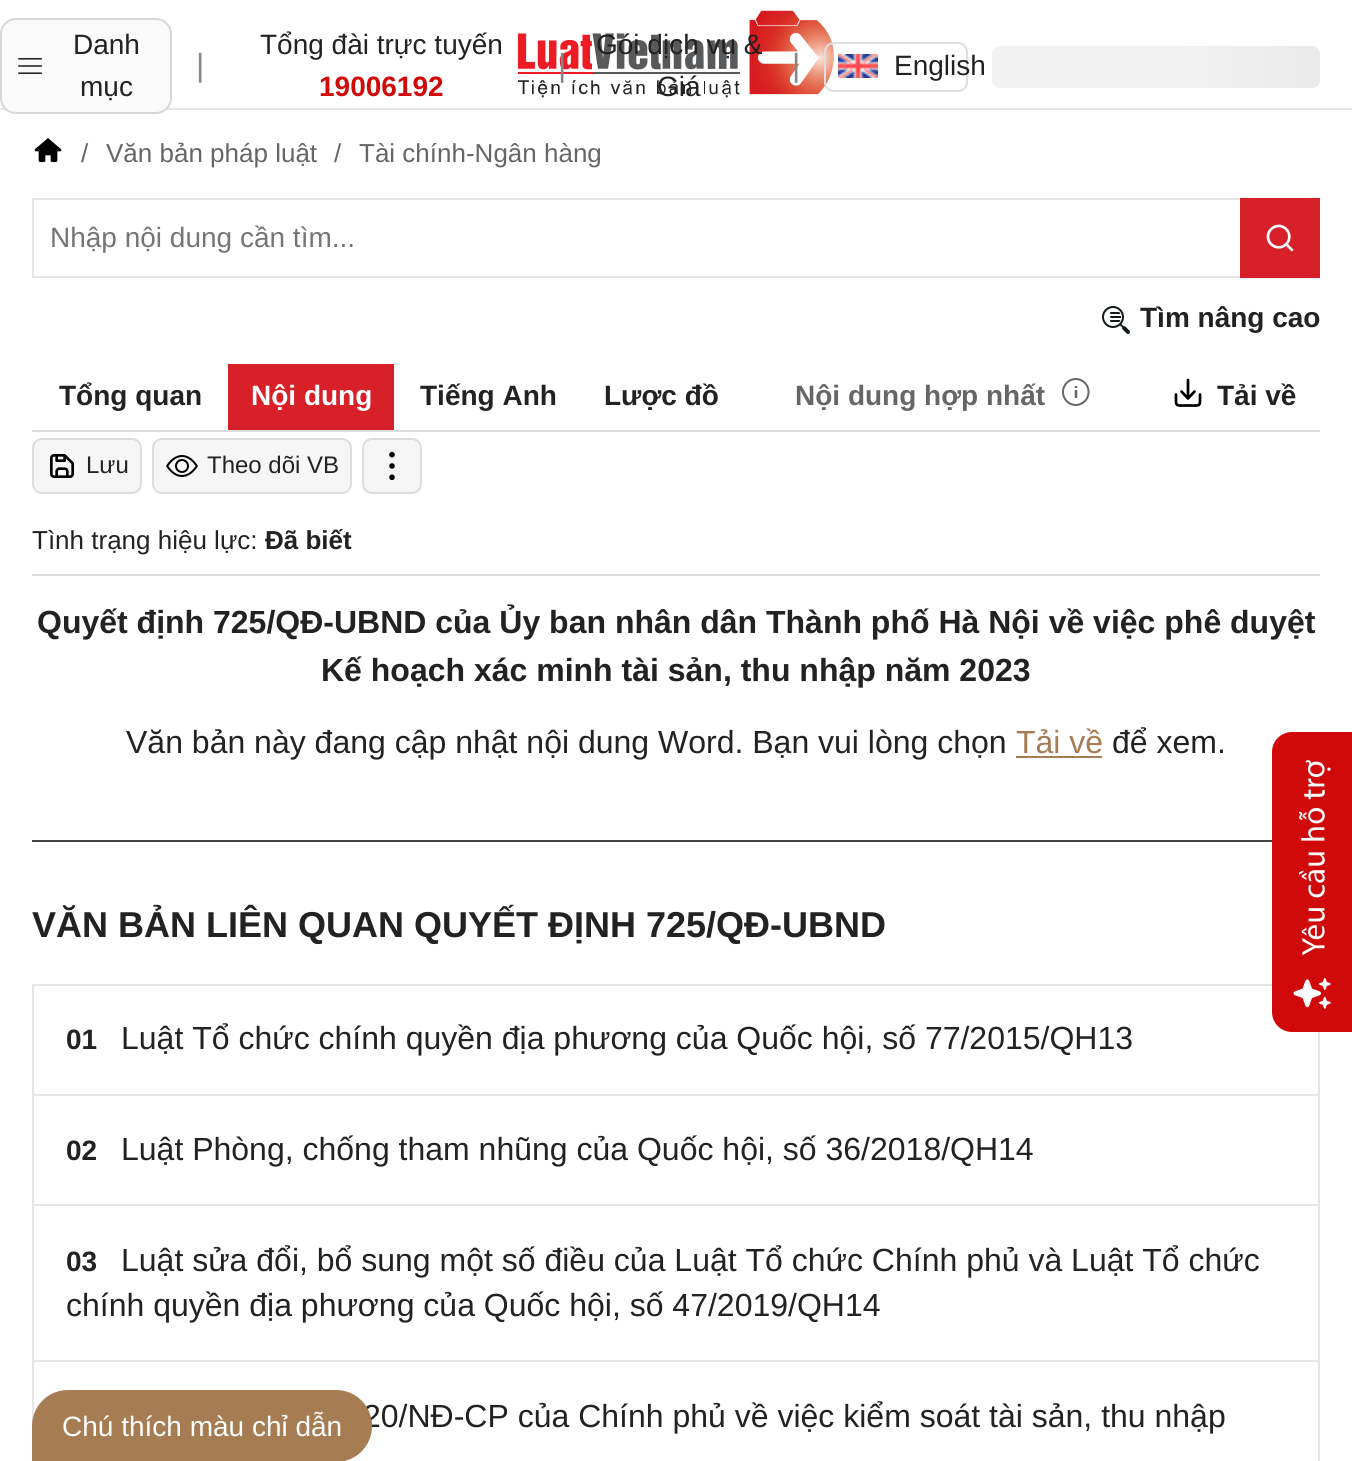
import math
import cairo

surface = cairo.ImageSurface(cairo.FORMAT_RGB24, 1352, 1461)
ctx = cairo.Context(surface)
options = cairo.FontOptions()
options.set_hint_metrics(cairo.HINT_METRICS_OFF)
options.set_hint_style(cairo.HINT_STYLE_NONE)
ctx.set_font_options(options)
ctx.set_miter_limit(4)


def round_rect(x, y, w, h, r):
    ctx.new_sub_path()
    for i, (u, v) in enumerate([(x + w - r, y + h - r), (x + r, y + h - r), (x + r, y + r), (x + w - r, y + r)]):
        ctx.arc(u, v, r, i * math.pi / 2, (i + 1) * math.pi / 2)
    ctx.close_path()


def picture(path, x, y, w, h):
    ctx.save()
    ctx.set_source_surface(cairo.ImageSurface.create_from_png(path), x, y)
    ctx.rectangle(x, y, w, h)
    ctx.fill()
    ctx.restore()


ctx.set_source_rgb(1, 1, 1)
ctx.paint()
ctx.set_source_rgb(0.902, 0.902, 0.902)
ctx.rectangle(0, 108, 1352, 2)
ctx.fill()
picture("img1.png", 518, 10, 316, 88)
ctx.set_source_rgb(0.98, 0.98, 0.98)
round_rect(1, 19, 170, 94, 15)
ctx.fill_preserve()
ctx.set_source_rgb(0.843, 0.847, 0.851)
ctx.stroke()
ctx.select_font_face("Liberation Sans")
ctx.set_font_size(28)
ctx.set_source_rgb(0.133, 0.133, 0.133)
ctx.move_to(73, 54)
ctx.show_text("Danh")
picture("img2.png", 18, 58, 24, 16)
ctx.move_to(80, 96)
ctx.show_text("mục")
ctx.set_font_size(32)
ctx.set_source_rgb(0.522, 0.525, 0.541)
ctx.move_to(196, 76)
ctx.show_text("|")
ctx.set_font_size(28)
ctx.set_source_rgb(0.133, 0.133, 0.133)
ctx.move_to(260, 54)
ctx.show_text("Tổng đài trực tuyến")
ctx.select_font_face("Liberation Sans", cairo.FONT_SLANT_NORMAL, cairo.FONT_WEIGHT_BOLD)
ctx.set_source_rgb(0.816, 0.039, 0.039)
ctx.move_to(319, 96)
ctx.show_text("19006192")
ctx.select_font_face("Liberation Sans")
ctx.set_font_size(32)
ctx.set_source_rgb(0.522, 0.525, 0.541)
ctx.move_to(558, 76)
ctx.show_text("|")
ctx.set_font_size(28)
ctx.set_source_rgb(0.133, 0.133, 0.133)
ctx.move_to(596, 54)
ctx.show_text("Gói dịch vụ &")
ctx.move_to(657, 96)
ctx.show_text("Giá")
ctx.set_font_size(32)
ctx.set_source_rgb(0.522, 0.525, 0.541)
ctx.move_to(792, 76)
ctx.show_text("|")
round_rect(825, 43, 142, 48, 9)
ctx.set_source_rgb(0.867, 0.867, 0.867)
ctx.stroke()
picture("img3.png", 838, 54, 40, 24)
ctx.set_font_size(28)
ctx.set_source_rgb(0.133, 0.133, 0.133)
ctx.move_to(894, 75)
ctx.show_text("English")
gradient = cairo.LinearGradient(992, 67, 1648, 67)
gradient.add_color_stop_rgba(0.25, 0.949, 0.949, 0.949, 1)
gradient.add_color_stop_rgba(0.5, 0.918, 0.918, 0.918, 1)
gradient.add_color_stop_rgba(0.75, 0.949, 0.949, 0.949, 1)
ctx.set_source(gradient)
round_rect(992, 46, 328, 42, 8)
ctx.fill()
picture("img4.png", 34, 138, 28, 24)
ctx.set_font_size(26)
ctx.set_source_rgb(0.4, 0.4, 0.4)
ctx.move_to(81, 162)
ctx.show_text("/")
ctx.move_to(106, 162)
ctx.show_text("Văn bản pháp luật")
ctx.move_to(334, 162)
ctx.show_text("/")
ctx.move_to(359, 162)
ctx.show_text("Tài chính-Ngân hàng")
ctx.rectangle(33, 199, 1286, 78)
ctx.set_source_rgb(0.902, 0.902, 0.902)
ctx.stroke()
ctx.set_font_size(28)
ctx.set_source_rgb(0.459, 0.459, 0.459)
ctx.move_to(50, 247)
ctx.show_text("Nhập nội dung cần tìm...")
ctx.set_source_rgb(0.843, 0.125, 0.153)
ctx.rectangle(1240, 198, 80, 80)
ctx.fill()
picture("img5.png", 1266, 224, 28, 28)
picture("img6.png", 1102, 306, 28, 28)
ctx.select_font_face("Liberation Sans", cairo.FONT_SLANT_NORMAL, cairo.FONT_WEIGHT_BOLD)
ctx.set_source_rgb(0.133, 0.133, 0.133)
ctx.move_to(1140, 327)
ctx.show_text("Tìm nâng cao")
ctx.set_source_rgb(0.267, 0.267, 0.267)
ctx.rectangle(32, 840, 1240, 2)
ctx.fill()
ctx.set_source_rgb(0.867, 0.867, 0.867)
ctx.rectangle(32, 430, 1288, 2)
ctx.fill()
ctx.set_source_rgb(0.133, 0.133, 0.133)
ctx.move_to(59, 405)
ctx.show_text("Tổng quan")
ctx.set_source_rgb(0.843, 0.125, 0.153)
ctx.rectangle(228, 364, 166, 66)
ctx.fill()
ctx.set_source_rgb(1, 1, 1)
ctx.move_to(251, 405)
ctx.show_text("Nội dung")
ctx.set_source_rgb(0.133, 0.133, 0.133)
ctx.move_to(420, 405)
ctx.show_text("Tiếng Anh")
ctx.move_to(604, 405)
ctx.show_text("Lược đồ")
ctx.set_source_rgb(0.4, 0.4, 0.4)
ctx.move_to(795, 405)
ctx.show_text("Nội dung hợp nhất")
picture("img7.png", 1062, 378, 28, 28)
ctx.new_path()
ctx.move_to(1176, 394.5)
ctx.curve_to(1176, 407, 1174.5, 405.5, 1188, 405.5)
ctx.curve_to(1201.5, 405.5, 1200, 407, 1200, 394.5)
ctx.move_to(1188, 380)
ctx.line_to(1188, 398.5)
ctx.move_to(1188, 398.5)
ctx.line_to(1181.5, 391.5)
ctx.move_to(1188, 398.5)
ctx.line_to(1194.5, 391.5)
ctx.set_source_rgb(0, 0, 0)
ctx.set_line_width(2.7)
ctx.set_line_cap(cairo.LINE_CAP_ROUND)
ctx.set_line_join(cairo.LINE_JOIN_ROUND)
ctx.stroke()
ctx.set_source_rgb(0.133, 0.133, 0.133)
ctx.move_to(1217, 405)
ctx.show_text("Tải về")
ctx.set_source_rgb(0.961, 0.961, 0.961)
round_rect(33, 439, 108, 54, 9)
ctx.fill_preserve()
ctx.set_source_rgb(0.867, 0.867, 0.867)
ctx.set_line_width(2)
ctx.set_line_cap(cairo.LINE_CAP_BUTT)
ctx.set_line_join(cairo.LINE_JOIN_MITER)
ctx.stroke()
picture("img8.png", 50, 454, 24, 24)
ctx.select_font_face("Liberation Sans")
ctx.set_font_size(24)
ctx.set_source_rgb(0.133, 0.133, 0.133)
ctx.move_to(86, 473)
ctx.show_text("Lưu")
ctx.set_source_rgb(0.961, 0.961, 0.961)
round_rect(153, 439, 198, 54, 9)
ctx.fill_preserve()
ctx.set_source_rgb(0.867, 0.867, 0.867)
ctx.stroke()
picture("img9.png", 166, 455, 32, 22)
ctx.set_source_rgb(0.133, 0.133, 0.133)
ctx.move_to(207, 473)
ctx.show_text("Theo dõi VB")
ctx.set_source_rgb(0.961, 0.961, 0.961)
round_rect(363, 439, 58, 54, 9)
ctx.fill_preserve()
ctx.set_source_rgb(0.867, 0.867, 0.867)
ctx.stroke()
picture("img10.png", 389, 451, 6, 30)
ctx.rectangle(32, 574, 1288, 2)
ctx.fill()
ctx.set_font_size(26)
ctx.set_source_rgb(0.133, 0.133, 0.133)
ctx.move_to(32, 549)
ctx.show_text("Tình trạng hiệu lực:")
ctx.select_font_face("Liberation Sans", cairo.FONT_SLANT_NORMAL, cairo.FONT_WEIGHT_BOLD)
ctx.move_to(265, 549)
ctx.show_text("Đã biết")
ctx.set_font_size(32)
ctx.move_to(37, 633)
ctx.show_text("Quyết định 725/QĐ-UBND của Ủy ban nhân dân Thành phố Hà Nội về việc phê duyệt")
ctx.move_to(321, 681)
ctx.show_text("Kế hoạch xác minh tài sản, thu nhập năm 2023")
ctx.select_font_face("Liberation Sans")
ctx.move_to(126, 753)
ctx.show_text("Văn bản này đang cập nhật nội dung Word. Bạn vui lòng chọn")
ctx.set_source_rgb(0.651, 0.486, 0.322)
ctx.move_to(1016, 753)
ctx.show_text("Tải về")
ctx.rectangle(1016, 756, 86, 2)
ctx.fill()
ctx.set_source_rgb(0.133, 0.133, 0.133)
ctx.move_to(1112, 753)
ctx.show_text("để xem.")
ctx.select_font_face("Liberation Sans", cairo.FONT_SLANT_NORMAL, cairo.FONT_WEIGHT_BOLD)
ctx.set_font_size(36)
ctx.move_to(32, 937)
ctx.show_text("VĂN BẢN LIÊN QUAN QUYẾT ĐỊNH 725/QĐ-UBND")
ctx.rectangle(33, 985, 1286, 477)
ctx.set_source_rgb(0.902, 0.902, 0.902)
ctx.stroke()
ctx.rectangle(34, 1094, 1284, 2)
ctx.fill()
ctx.set_font_size(28)
ctx.set_source_rgb(0.133, 0.133, 0.133)
ctx.move_to(66, 1049)
ctx.show_text("01")
ctx.select_font_face("Liberation Sans")
ctx.set_font_size(32)
ctx.move_to(121, 1049)
ctx.show_text("Luật Tổ chức chính quyền địa phương của Quốc hội, số 77/2015/QH13")
ctx.set_source_rgb(0.902, 0.902, 0.902)
ctx.rectangle(34, 1204, 1284, 2)
ctx.fill()
ctx.select_font_face("Liberation Sans", cairo.FONT_SLANT_NORMAL, cairo.FONT_WEIGHT_BOLD)
ctx.set_font_size(28)
ctx.set_source_rgb(0.133, 0.133, 0.133)
ctx.move_to(66, 1160)
ctx.show_text("02")
ctx.select_font_face("Liberation Sans")
ctx.set_font_size(32)
ctx.move_to(121, 1160)
ctx.show_text("Luật Phòng, chống tham nhũng của Quốc hội, số 36/2018/QH14")
ctx.set_source_rgb(0.902, 0.902, 0.902)
ctx.rectangle(34, 1360, 1284, 2)
ctx.fill()
ctx.set_source_rgb(0.133, 0.133, 0.133)
ctx.move_to(121, 1271)
ctx.show_text("Luật sửa đổi, bổ sung một số điều của Luật Tổ chức Chính phủ và Luật Tổ chức")
ctx.move_to(66, 1316)
ctx.show_text("chính quyền địa phương của Quốc hội, số 47/2019/QH14")
ctx.select_font_face("Liberation Sans", cairo.FONT_SLANT_NORMAL, cairo.FONT_WEIGHT_BOLD)
ctx.set_font_size(28)
ctx.move_to(66, 1271)
ctx.show_text("03")
ctx.select_font_face("Liberation Sans")
ctx.set_font_size(32)
ctx.move_to(363, 1427)
ctx.show_text("20/NĐ-CP của Chính phủ về việc kiểm soát tài sản, thu nhập")
picture("img11.png", 1272, 732, 80, 300)
ctx.set_source_rgb(0.651, 0.486, 0.322)
ctx.new_path()
ctx.move_to(68, 1390)
ctx.line_to(336, 1390)
ctx.curve_to(356, 1390, 372, 1406, 372, 1426)
ctx.curve_to(372, 1446, 356, 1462, 336, 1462)
ctx.line_to(32, 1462)
ctx.line_to(32, 1426)
ctx.curve_to(32, 1406, 48, 1390, 68, 1390)
ctx.close_path()
ctx.fill()
ctx.set_font_size(28)
ctx.set_source_rgb(1, 1, 1)
ctx.move_to(62, 1436)
ctx.show_text("Chú thích màu chỉ dẫn")
surface.write_to_png("page.png")
